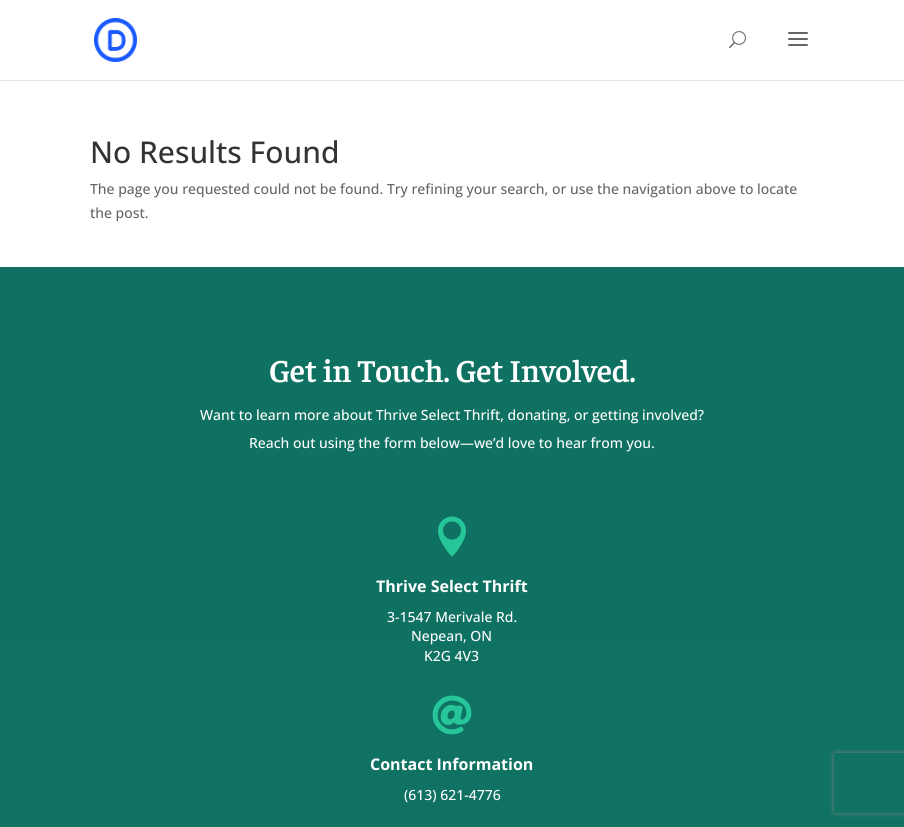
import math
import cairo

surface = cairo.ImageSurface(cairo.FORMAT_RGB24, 904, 827)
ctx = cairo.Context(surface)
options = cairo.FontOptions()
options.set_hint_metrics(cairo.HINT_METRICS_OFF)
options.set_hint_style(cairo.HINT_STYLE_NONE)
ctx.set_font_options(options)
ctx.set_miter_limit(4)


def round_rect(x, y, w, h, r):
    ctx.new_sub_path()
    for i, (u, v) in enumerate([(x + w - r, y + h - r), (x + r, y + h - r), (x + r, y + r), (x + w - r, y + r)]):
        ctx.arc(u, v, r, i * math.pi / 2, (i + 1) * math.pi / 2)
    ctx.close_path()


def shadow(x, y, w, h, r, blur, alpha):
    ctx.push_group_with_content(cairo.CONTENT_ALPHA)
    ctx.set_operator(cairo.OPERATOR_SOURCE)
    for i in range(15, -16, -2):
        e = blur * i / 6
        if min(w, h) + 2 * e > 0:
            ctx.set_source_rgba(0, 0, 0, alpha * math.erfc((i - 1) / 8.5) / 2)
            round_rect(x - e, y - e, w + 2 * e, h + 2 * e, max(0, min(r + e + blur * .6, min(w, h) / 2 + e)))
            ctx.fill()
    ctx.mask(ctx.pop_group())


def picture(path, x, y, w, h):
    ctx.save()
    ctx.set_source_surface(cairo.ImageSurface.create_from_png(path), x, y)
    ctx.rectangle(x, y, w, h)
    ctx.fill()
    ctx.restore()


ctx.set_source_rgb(1, 1, 1)
ctx.paint()
ctx.set_source_rgb(0.902, 0.902, 0.902)
ctx.rectangle(0, 80, 904, 1)
ctx.fill()
picture("img1.png", 94, 18, 43, 44)
picture("img2.png", 729, 31, 17, 18)
picture("img3.png", 788, 32, 20, 14)
ctx.select_font_face("Open Sans Medium")
ctx.set_font_size(30)
ctx.set_source_rgb(0.2, 0.2, 0.2)
ctx.move_to(90, 163)
ctx.show_text("No Results Found")
ctx.set_font_size(14)
ctx.set_source_rgb(0.4, 0.4, 0.4)
ctx.move_to(90, 194)
ctx.show_text("The page you requested could not be found. Try refining your search, or use the navigation above to locate")
ctx.move_to(90, 218)
ctx.show_text("the post.")
gradient = cairo.LinearGradient(452, 267, 452, 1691)
gradient.add_color_stop_rgba(0, 0.055, 0.443, 0.384, 1)
gradient.add_color_stop_rgba(1, 0.067, 0.451, 0.392, 1)
ctx.set_source(gradient)
ctx.rectangle(0, 267, 904, 560)
ctx.fill()
ctx.select_font_face("Faustina SemiBold")
ctx.set_font_size(32)
ctx.set_source_rgb(1, 1, 1)
ctx.move_to(269, 382)
ctx.show_text("Get in Touch. Get Involved.")
ctx.select_font_face("Open Sans Medium")
ctx.set_font_size(14)
ctx.move_to(200, 420)
ctx.show_text("Want to learn more about Thrive Select Thrift, donating, or getting involved?")
ctx.move_to(249, 448)
ctx.show_text("Reach out using the form below—we’d love to hear from you.")
picture("img4.png", 438, 516, 28, 41)
ctx.select_font_face("Open Sans", cairo.FONT_SLANT_NORMAL, cairo.FONT_WEIGHT_BOLD)
ctx.set_font_size(16)
ctx.move_to(376, 592)
ctx.show_text("Thrive Select Thrift")
ctx.select_font_face("Open Sans Medium")
ctx.set_font_size(14)
ctx.move_to(387, 622)
ctx.show_text("3-1547 Merivale Rd.")
ctx.move_to(411, 641)
ctx.show_text("Nepean, ON")
ctx.move_to(424, 661)
ctx.show_text("K2G 4V3")
picture("img5.png", 432, 695, 40, 40)
ctx.select_font_face("Open Sans", cairo.FONT_SLANT_NORMAL, cairo.FONT_WEIGHT_BOLD)
ctx.set_font_size(16)
ctx.move_to(370, 770)
ctx.show_text("Contact Information")
ctx.select_font_face("Open Sans Medium")
ctx.set_font_size(14)
ctx.move_to(404, 800)
ctx.show_text("(613) 621-4776")
ctx.save()
ctx.set_fill_rule(cairo.FILL_RULE_EVEN_ODD)
ctx.new_path()
ctx.move_to(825, 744)
ctx.line_to(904, 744)
ctx.line_to(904, 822)
ctx.line_to(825, 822)
ctx.close_path()
ctx.move_to(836, 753)
ctx.line_to(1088, 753)
ctx.curve_to(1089, 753, 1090, 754, 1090, 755)
ctx.line_to(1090, 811)
ctx.curve_to(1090, 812, 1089, 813, 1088, 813)
ctx.line_to(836, 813)
ctx.curve_to(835, 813, 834, 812, 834, 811)
ctx.line_to(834, 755)
ctx.curve_to(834, 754, 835, 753, 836, 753)
ctx.close_path()
ctx.clip()
ctx.set_source_rgb(0.502, 0.502, 0.502)
shadow(834, 753, 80, 60, 2, 2.5, 1)
ctx.restore()
surface.write_to_png("page.png")
